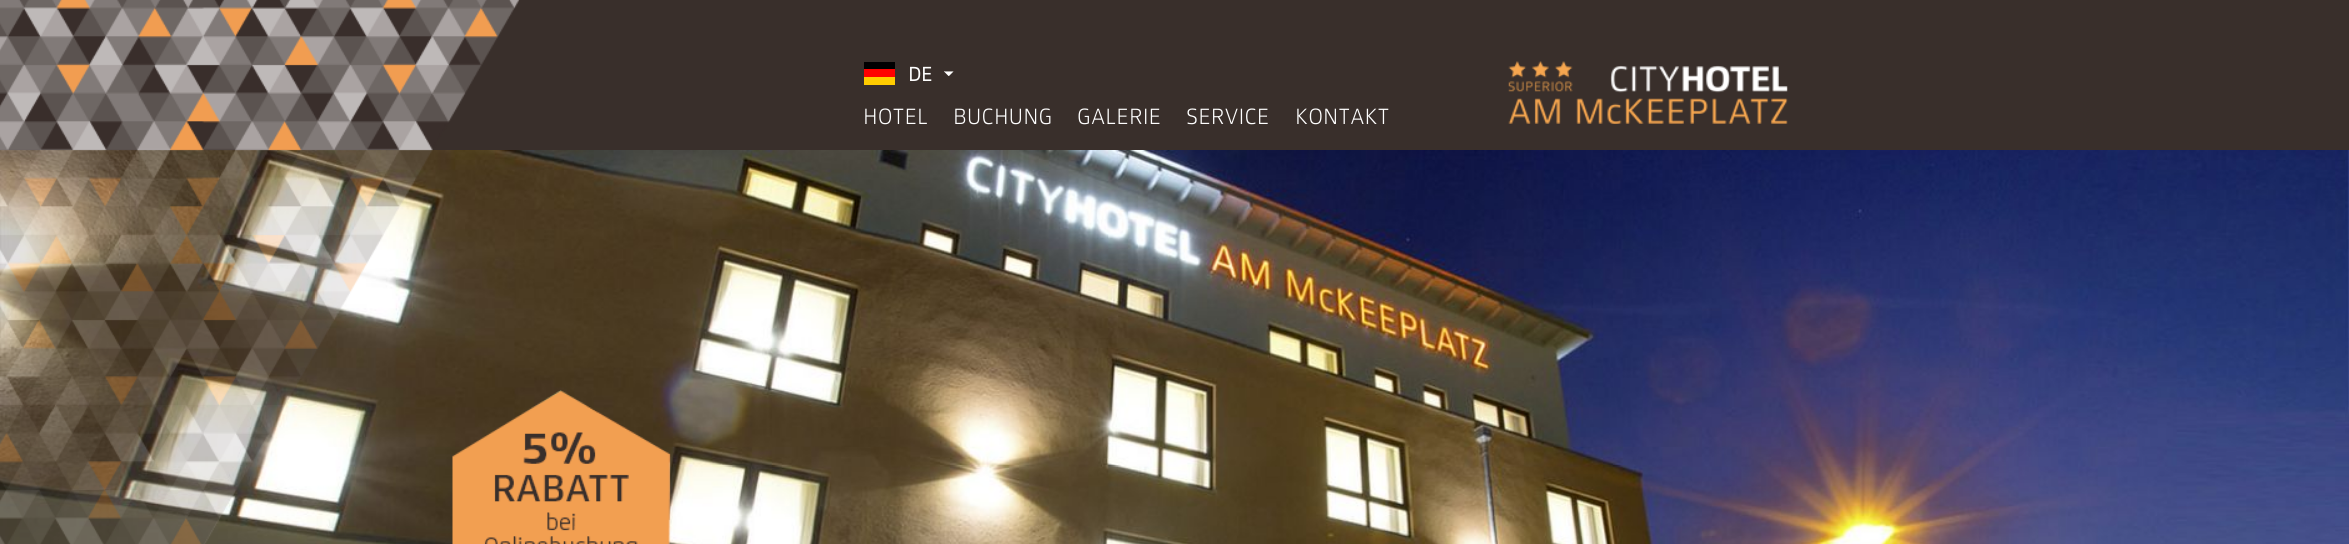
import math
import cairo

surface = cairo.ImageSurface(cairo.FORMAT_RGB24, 2349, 544)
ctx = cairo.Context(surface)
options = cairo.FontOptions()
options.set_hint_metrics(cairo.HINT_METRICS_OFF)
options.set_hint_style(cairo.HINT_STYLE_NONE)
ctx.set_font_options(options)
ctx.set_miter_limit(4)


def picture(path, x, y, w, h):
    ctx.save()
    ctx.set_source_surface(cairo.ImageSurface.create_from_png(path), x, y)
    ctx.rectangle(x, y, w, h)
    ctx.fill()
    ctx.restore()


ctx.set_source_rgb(0.224, 0.184, 0.169)
ctx.paint()
picture("img5.png", 0, 150, 2349, 394)
picture("img1.png", 0, 0, 520, 544)
ctx.set_source_rgb(1, 0.8, 0)
ctx.rectangle(864, 77, 31, 8)
ctx.fill()
ctx.set_source_rgb(0, 0, 0.004)
ctx.rectangle(864, 62, 31, 7)
ctx.fill()
ctx.set_source_rgb(1, 0, 0)
ctx.rectangle(864, 69, 31, 8)
ctx.fill()
ctx.select_font_face("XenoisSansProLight", cairo.FONT_SLANT_NORMAL, cairo.FONT_WEIGHT_BOLD)
ctx.set_font_size(20)
ctx.set_source_rgb(1, 1, 1)
ctx.move_to(908, 81)
ctx.show_text("DE")
picture("img2.png", 944, 71, 10, 5)
picture("img3.png", 1508, 61, 280, 63)
ctx.select_font_face("XenoisSansProLight Light")
ctx.set_font_size(22.5)
ctx.move_to(863, 124)
ctx.show_text("HOTEL")
ctx.move_to(953, 124)
ctx.show_text("BUCHUNG")
ctx.move_to(1077, 124)
ctx.show_text("GALERIE")
ctx.move_to(1186, 124)
ctx.show_text("SERVICE")
ctx.move_to(1295, 124)
ctx.show_text("KONTAKT")
picture("img4.png", 452, 390, 219, 154)
surface.write_to_png("page.png")
